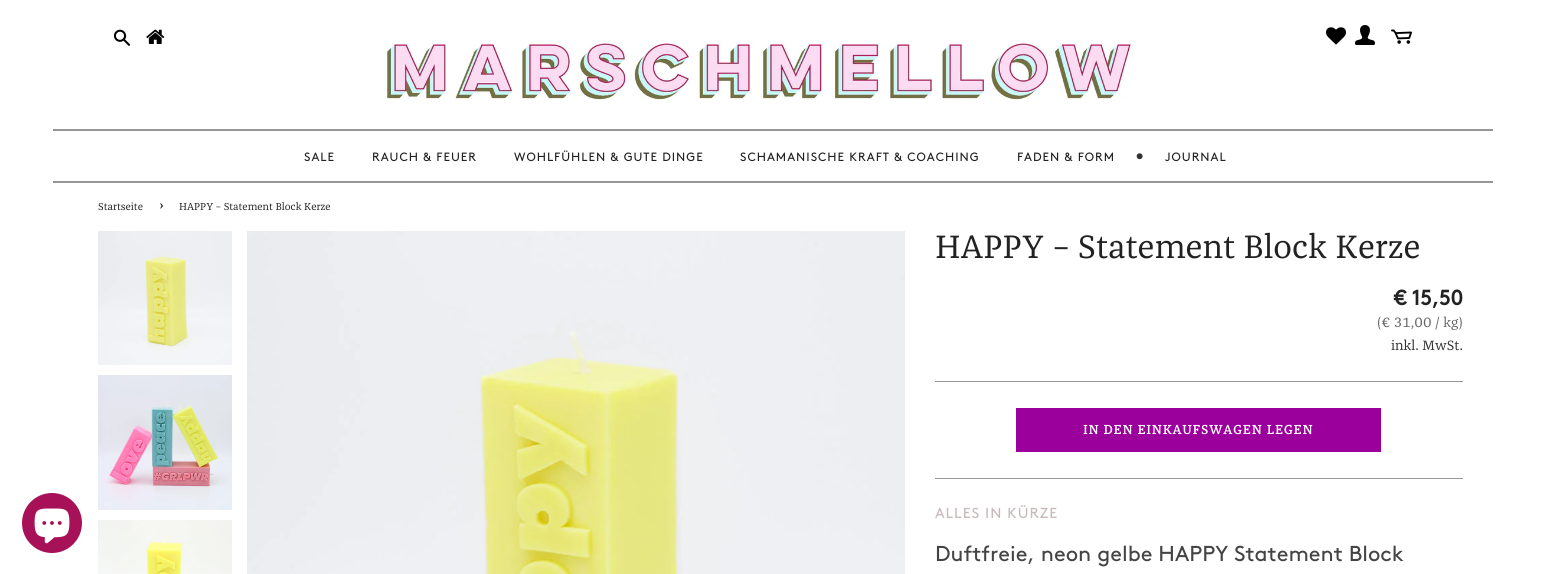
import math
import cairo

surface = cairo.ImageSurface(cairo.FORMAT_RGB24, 1545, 574)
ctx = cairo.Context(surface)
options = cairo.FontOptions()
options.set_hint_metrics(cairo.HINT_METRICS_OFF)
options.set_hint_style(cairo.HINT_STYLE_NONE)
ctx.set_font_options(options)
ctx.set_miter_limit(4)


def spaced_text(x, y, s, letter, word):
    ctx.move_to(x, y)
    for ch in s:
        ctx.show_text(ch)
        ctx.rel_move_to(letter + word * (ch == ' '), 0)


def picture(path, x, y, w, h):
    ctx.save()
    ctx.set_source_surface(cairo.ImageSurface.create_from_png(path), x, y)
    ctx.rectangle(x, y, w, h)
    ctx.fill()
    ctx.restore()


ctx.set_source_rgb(1, 1, 1)
ctx.paint()
ctx.set_source_rgb(0.651, 0.067, 0.341)
ctx.arc(52, 523, 30, 0, 2 * math.pi)
ctx.fill()
picture("img1.png", 34, 508, 36, 36)
picture("img2.png", 113, 29, 18, 17)
picture("img3.png", 146, 29, 19, 15)
picture("img4.png", 1326, 27, 20, 18)
picture("img5.png", 1355, 25, 20, 20)
picture("img6.png", 1391, 29, 21, 15)
picture("img7.png", 386, 43, 746, 57)
ctx.set_source_rgb(0.592, 0.592, 0.592)
ctx.rectangle(53, 129, 1440, 2)
ctx.fill()
ctx.rectangle(53, 181, 1440, 2)
ctx.fill()
ctx.select_font_face("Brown")
ctx.set_font_size(12)
ctx.set_source_rgb(0.133, 0.133, 0.133)
spaced_text(304, 161, "SALE", 1, 0)
spaced_text(372, 161, "RAUCH & FEUER", 1, 0)
spaced_text(514, 161, "WOHLFÜHLEN & GUTE DINGE", 1, 0)
spaced_text(740, 161, "SCHAMANISCHE KRAFT & COACHING", 1, 0)
spaced_text(1017, 161, "FADEN & FORM", 1, 0)
ctx.select_font_face("Lato")
ctx.set_font_size(16)
ctx.set_source_rgb(0.2, 0.2, 0.2)
ctx.move_to(1135, 161)
ctx.show_text("•")
ctx.select_font_face("Brown")
ctx.set_font_size(12)
ctx.set_source_rgb(0.133, 0.133, 0.133)
spaced_text(1165, 161, "JOURNAL", 1, 0)
ctx.select_font_face("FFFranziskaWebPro")
ctx.set_font_size(10.5)
ctx.move_to(98, 210)
ctx.show_text("Startseite")
ctx.set_font_size(15)
ctx.move_to(159, 210)
ctx.show_text("›")
ctx.set_font_size(10.5)
ctx.move_to(179, 210)
ctx.show_text("HAPPY – Statement Block Kerze")
picture("img8.png", 98, 231, 134, 134)
picture("img9.png", 98, 375, 134, 135)
picture("img10.png", 98, 520, 134, 54)
picture("img11.png", 247, 231, 658, 343)
ctx.set_font_size(33.6)
ctx.move_to(935, 258)
ctx.show_text("HAPPY – Statement Block Kerze")
ctx.select_font_face("Brown", cairo.FONT_SLANT_NORMAL, cairo.FONT_WEIGHT_BOLD)
ctx.set_font_size(21)
ctx.move_to(1394, 305)
ctx.show_text("€ 15,50")
ctx.select_font_face("FFFranziskaWebPro")
ctx.set_font_size(14)
ctx.set_source_rgb(0.4, 0.4, 0.4)
ctx.move_to(1377, 327)
ctx.show_text("(€ 31,00 / kg)")
ctx.set_source_rgb(0.2, 0.2, 0.2)
ctx.move_to(1391, 350)
ctx.show_text("inkl. MwSt.")
ctx.set_source_rgb(0.592, 0.592, 0.592)
ctx.rectangle(935, 381, 528, 1)
ctx.fill()
ctx.set_source_rgb(0.612, 0, 0.612)
ctx.rectangle(1016, 408, 365, 44)
ctx.fill()
ctx.select_font_face("FFFranziskaWebPro", cairo.FONT_SLANT_NORMAL, cairo.FONT_WEIGHT_BOLD)
ctx.set_font_size(13)
ctx.set_source_rgb(1, 1, 1)
spaced_text(1083, 434, "IN DEN EINKAUFSWAGEN LEGEN", 1, 0)
ctx.set_source_rgb(0.592, 0.592, 0.592)
ctx.rectangle(935, 478, 528, 1)
ctx.fill()
ctx.select_font_face("Brown")
ctx.set_font_size(14.5)
ctx.set_source_rgb(0.776, 0.729, 0.729)
spaced_text(935, 518, "ALLES IN KÜRZE", 1, 0)
ctx.set_font_size(21.6)
ctx.set_source_rgb(0.267, 0.267, 0.267)
ctx.move_to(935, 561)
ctx.show_text("Duftfreie, neon gelbe HAPPY Statement Block")
surface.write_to_png("page.png")
